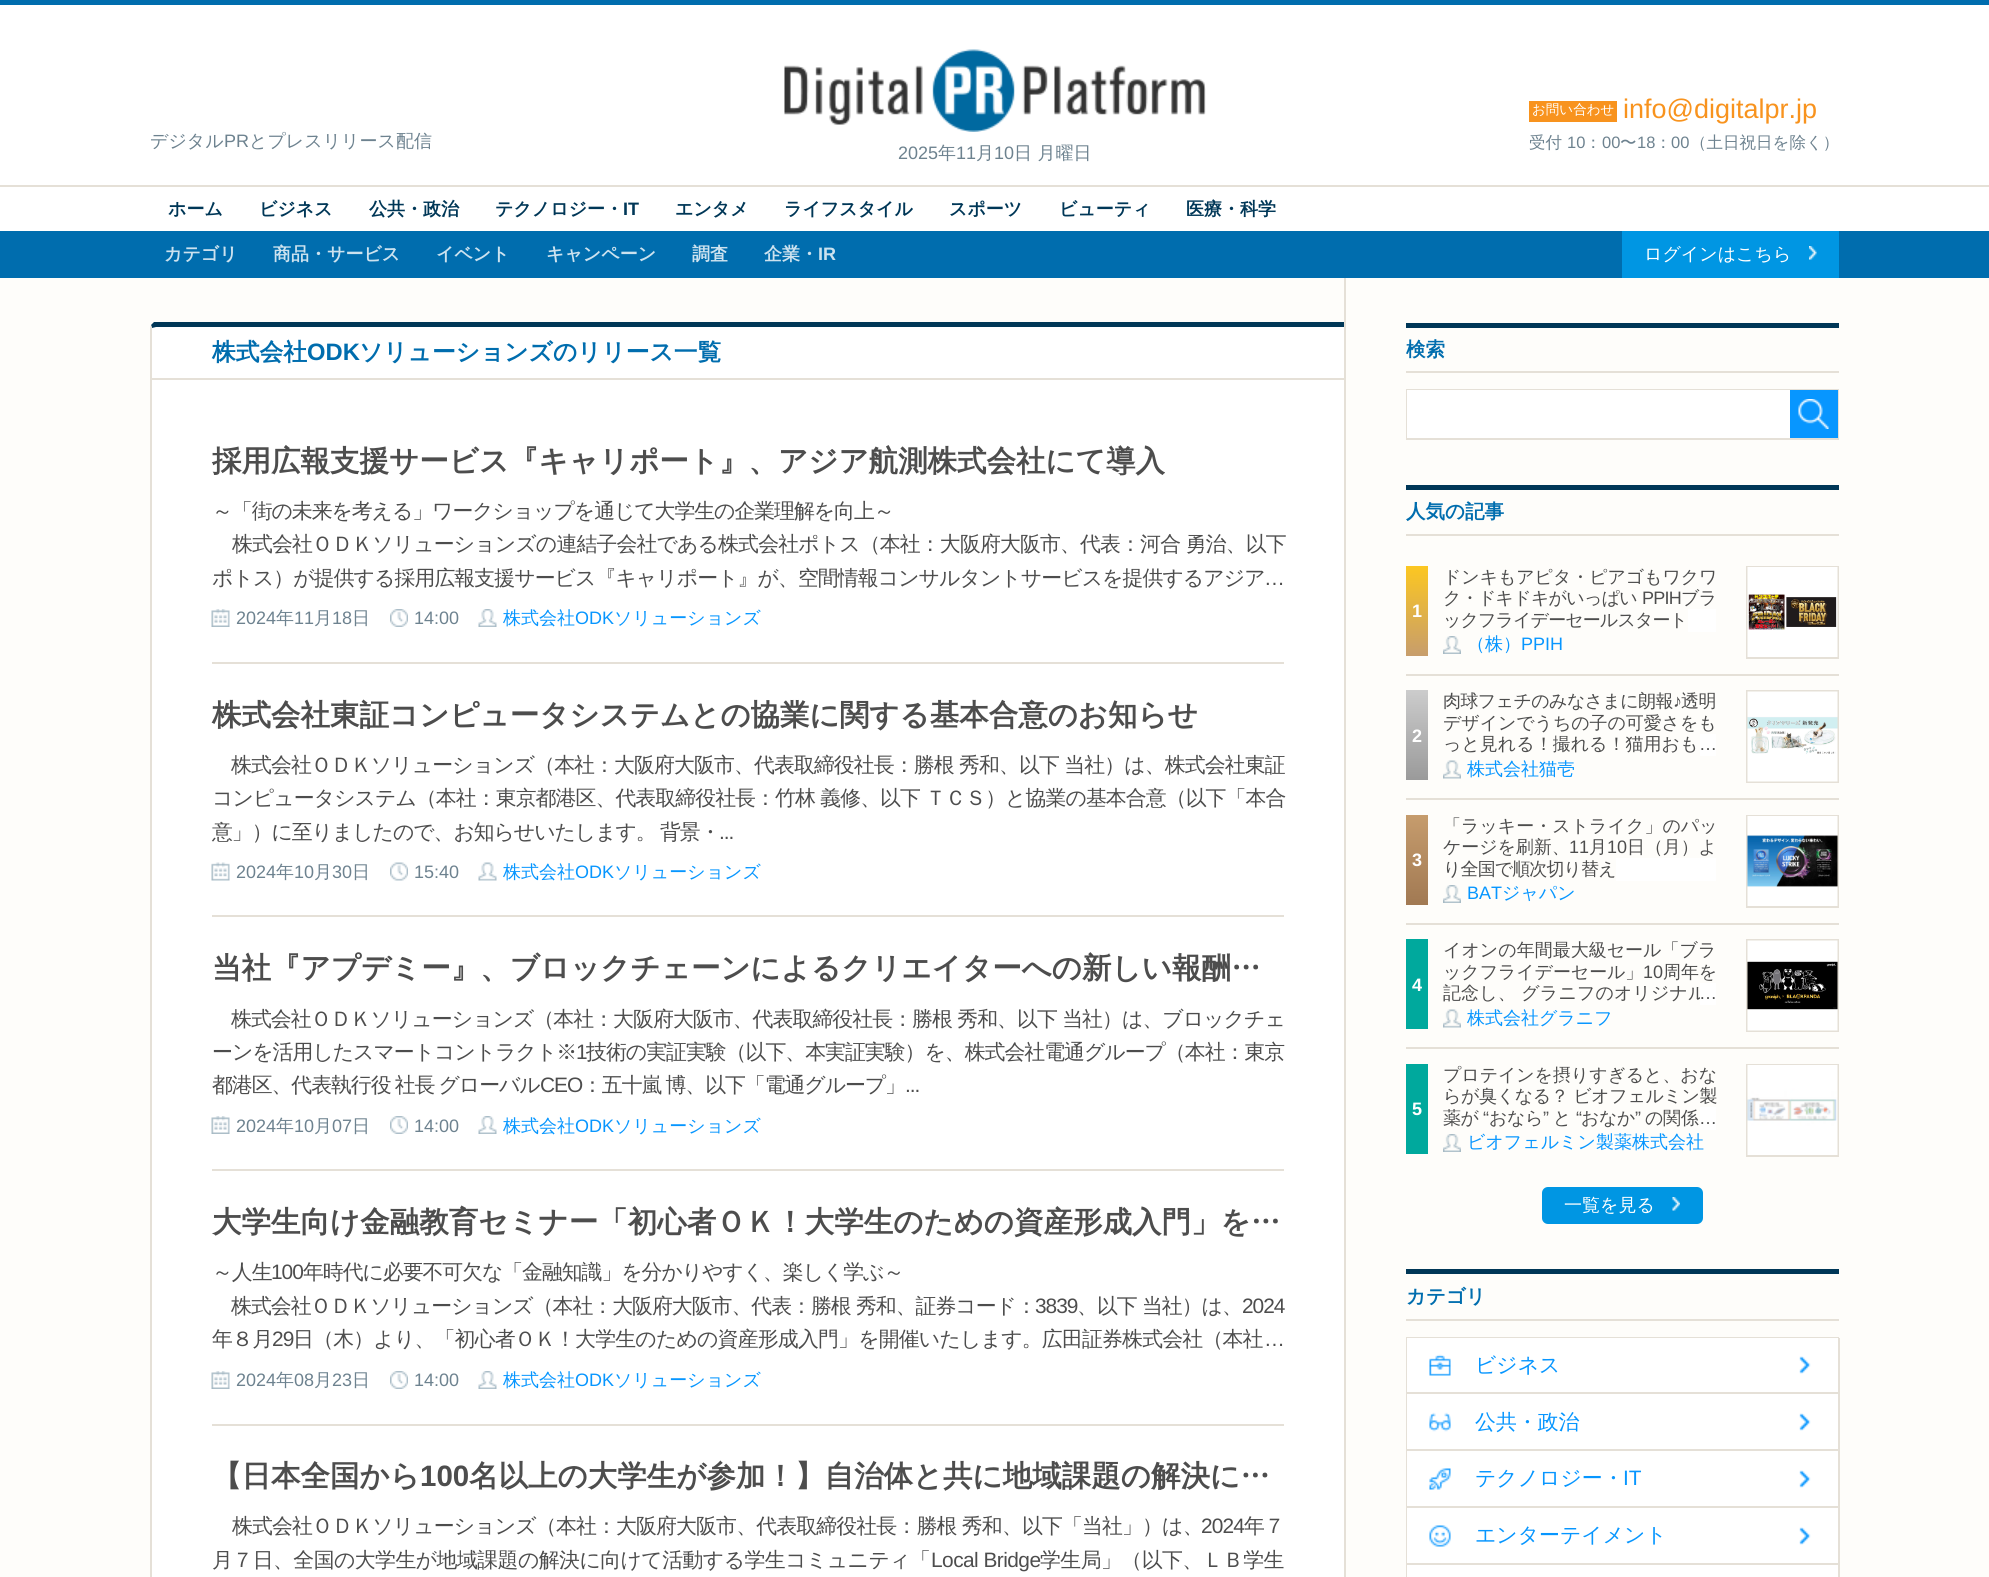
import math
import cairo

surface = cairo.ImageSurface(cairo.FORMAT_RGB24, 1989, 1577)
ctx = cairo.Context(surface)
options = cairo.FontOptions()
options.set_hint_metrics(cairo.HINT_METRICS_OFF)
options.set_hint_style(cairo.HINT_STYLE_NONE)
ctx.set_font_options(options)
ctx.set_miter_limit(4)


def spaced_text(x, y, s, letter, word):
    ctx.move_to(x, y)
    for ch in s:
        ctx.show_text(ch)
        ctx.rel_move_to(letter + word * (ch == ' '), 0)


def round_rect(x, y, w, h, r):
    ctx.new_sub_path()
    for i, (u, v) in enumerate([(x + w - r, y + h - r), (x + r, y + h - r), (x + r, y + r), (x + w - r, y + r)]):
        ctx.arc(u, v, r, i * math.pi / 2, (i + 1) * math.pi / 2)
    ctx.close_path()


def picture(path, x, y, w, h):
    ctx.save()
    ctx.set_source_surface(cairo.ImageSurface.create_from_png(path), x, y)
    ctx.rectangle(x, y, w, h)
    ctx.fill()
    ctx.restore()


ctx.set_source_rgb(1, 1, 1)
ctx.paint()
ctx.set_source_rgb(0, 0.427, 0.682)
ctx.rectangle(0, 0, 1989, 5)
ctx.fill()
ctx.select_font_face("WenQuanYi Zen Hei Medium")
ctx.set_font_size(18)
ctx.set_source_rgb(0.427, 0.51, 0.561)
ctx.move_to(150, 147)
ctx.show_text("デジタル")
ctx.select_font_face("Liberation Sans")
ctx.move_to(224, 147)
ctx.show_text("PR")
ctx.select_font_face("WenQuanYi Zen Hei Medium")
ctx.move_to(249, 147)
ctx.show_text("とプレスリリース配信")
ctx.set_source_rgb(0.969, 0.576, 0.118)
ctx.rectangle(1529, 101, 88, 21)
ctx.fill()
ctx.set_font_size(13.5)
ctx.set_source_rgb(1, 1, 1)
ctx.move_to(1532, 114)
ctx.show_text("お問い合わせ")
ctx.select_font_face("Liberation Sans")
ctx.set_font_size(27)
ctx.set_source_rgb(0.969, 0.576, 0.118)
ctx.move_to(1623, 118)
ctx.show_text("info@digitalpr.jp")
ctx.select_font_face("WenQuanYi Zen Hei Medium")
ctx.set_font_size(16.5)
ctx.set_source_rgb(0.427, 0.51, 0.561)
ctx.move_to(1529, 148)
ctx.show_text("受付")
ctx.select_font_face("Liberation Sans")
ctx.move_to(1567, 148)
ctx.show_text("10")
ctx.select_font_face("WenQuanYi Zen Hei Medium")
ctx.move_to(1585, 148)
ctx.show_text("：")
ctx.select_font_face("Liberation Sans")
ctx.move_to(1602, 148)
ctx.show_text("00")
ctx.select_font_face("WenQuanYi Zen Hei Medium")
ctx.move_to(1620, 148)
ctx.show_text("〜")
ctx.select_font_face("Liberation Sans")
ctx.move_to(1637, 148)
ctx.show_text("18")
ctx.select_font_face("WenQuanYi Zen Hei Medium")
ctx.move_to(1655, 148)
ctx.show_text("：")
ctx.select_font_face("Liberation Sans")
ctx.move_to(1671, 148)
ctx.show_text("00")
ctx.select_font_face("WenQuanYi Zen Hei Medium")
ctx.move_to(1690, 148)
ctx.show_text("（土日祝日を除く）")
picture("img1.png", 784, 49, 422, 83)
ctx.select_font_face("Liberation Sans")
ctx.set_font_size(18)
ctx.move_to(898, 159)
ctx.show_text("2025")
ctx.select_font_face("WenQuanYi Zen Hei Medium")
ctx.move_to(938, 159)
ctx.show_text("年")
ctx.select_font_face("Liberation Sans")
ctx.move_to(956, 159)
ctx.show_text("11")
ctx.select_font_face("WenQuanYi Zen Hei Medium")
ctx.move_to(976, 159)
ctx.show_text("月")
ctx.select_font_face("Liberation Sans")
ctx.move_to(994, 159)
ctx.show_text("10")
ctx.select_font_face("WenQuanYi Zen Hei Medium")
ctx.move_to(1014, 159)
ctx.show_text("日 月曜日")
ctx.set_source_rgb(0, 0.427, 0.682)
ctx.rectangle(0, 231, 1989, 47)
ctx.fill()
ctx.set_source_rgb(0.898, 0.878, 0.843)
ctx.rectangle(0, 185, 1989, 2)
ctx.fill()
ctx.select_font_face("WenQuanYi Zen Hei", cairo.FONT_SLANT_NORMAL, cairo.FONT_WEIGHT_BOLD)
ctx.set_source_rgb(0, 0.216, 0.341)
ctx.move_to(168, 215)
ctx.show_text("ホーム")
ctx.move_to(259, 215)
ctx.show_text("ビジネス")
ctx.move_to(369, 215)
ctx.show_text("公共・政治")
ctx.move_to(495, 215)
ctx.show_text("テクノロジー・")
ctx.select_font_face("Liberation Sans", cairo.FONT_SLANT_NORMAL, cairo.FONT_WEIGHT_BOLD)
ctx.move_to(623, 215)
ctx.show_text("IT")
ctx.select_font_face("WenQuanYi Zen Hei", cairo.FONT_SLANT_NORMAL, cairo.FONT_WEIGHT_BOLD)
ctx.move_to(675, 215)
ctx.show_text("エンタメ")
ctx.move_to(784, 215)
ctx.show_text("ライフスタイル")
ctx.move_to(949, 215)
ctx.show_text("スポーツ")
ctx.move_to(1059, 215)
ctx.show_text("ビューティ")
ctx.move_to(1186, 215)
ctx.show_text("医療・科学")
ctx.set_source_rgb(0.8, 0.886, 0.937)
ctx.move_to(164, 260)
ctx.show_text("カテゴリ")
ctx.move_to(273, 260)
ctx.show_text("商品・サービス")
ctx.move_to(436, 260)
ctx.show_text("イベント")
ctx.move_to(546, 260)
ctx.show_text("キャンペーン")
ctx.move_to(692, 260)
ctx.show_text("調査")
ctx.move_to(764, 260)
ctx.show_text("企業・")
ctx.select_font_face("Liberation Sans", cairo.FONT_SLANT_NORMAL, cairo.FONT_WEIGHT_BOLD)
ctx.move_to(818, 260)
ctx.show_text("IR")
ctx.set_source_rgb(0, 0.588, 0.89)
ctx.rectangle(1622, 231, 217, 47)
ctx.fill()
ctx.select_font_face("WenQuanYi Zen Hei Medium")
ctx.set_source_rgb(1, 1, 1)
ctx.move_to(1644, 260)
ctx.show_text("ログインはこちら")
picture("img2.png", 1809, 246, 8, 14)
ctx.set_source_rgb(0.996, 0.992, 0.98)
ctx.rectangle(0, 278, 1989, 1299)
ctx.fill()
ctx.set_source_rgb(1, 1, 1)
ctx.new_path()
ctx.move_to(156, 323)
ctx.line_to(1344, 323)
ctx.line_to(1344, 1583)
ctx.line_to(156, 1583)
ctx.curve_to(152.5, 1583, 150, 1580.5, 150, 1577)
ctx.line_to(150, 329)
ctx.curve_to(150, 325.5, 152.5, 323, 156, 323)
ctx.close_path()
ctx.fill()
ctx.set_source_rgb(0, 0.216, 0.341)
ctx.new_path()
ctx.move_to(156, 327)
ctx.line_to(152, 328)
ctx.line_to(151, 325)
ctx.line_to(154, 322)
ctx.line_to(1344, 322)
ctx.line_to(1344, 327)
ctx.close_path()
ctx.fill()
ctx.set_source_rgb(0.898, 0.878, 0.843)
ctx.new_path()
ctx.move_to(150, 328)
ctx.line_to(150, 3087)
ctx.curve_to(150, 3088, 151, 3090, 152, 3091)
ctx.line_to(153, 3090)
ctx.line_to(152, 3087)
ctx.line_to(152, 328)
ctx.line_to(151, 325)
ctx.close_path()
ctx.fill()
ctx.rectangle(152, 378, 1192, 2)
ctx.fill()
ctx.select_font_face("WenQuanYi Zen Hei", cairo.FONT_SLANT_NORMAL, cairo.FONT_WEIGHT_BOLD)
ctx.set_font_size(23.75)
ctx.set_source_rgb(0, 0.427, 0.682)
ctx.move_to(212, 360)
ctx.show_text("株式会社")
ctx.select_font_face("Liberation Sans", cairo.FONT_SLANT_NORMAL, cairo.FONT_WEIGHT_BOLD)
ctx.move_to(307, 360)
ctx.show_text("ODK")
ctx.select_font_face("WenQuanYi Zen Hei", cairo.FONT_SLANT_NORMAL, cairo.FONT_WEIGHT_BOLD)
ctx.move_to(359, 360)
ctx.show_text("ソリューションズのリリース一覧")
ctx.set_font_size(29.5)
ctx.set_source_rgb(0.302, 0.302, 0.302)
ctx.move_to(212, 471)
ctx.show_text("採用広報支援サービス『キャリポート』、アジア航測株式会社にて導入")
ctx.select_font_face("WenQuanYi Zen Hei Medium")
ctx.set_font_size(20.88)
spaced_text(212, 518, "～「街の未来を考える」ワークショップを通じて大学生の企業理解を向上～", -1.05, 0)
spaced_text(232, 551, "株式会社ＯＤＫソリューションズの連結子会社である株式会社ポトス（本社：大阪府大阪市、代表：河合 勇治、以下", -0.85, 0)
spaced_text(212, 585, "ポトス）が提供する採用広報支援サービス『キャリポート』が、空間情報コンサルタントサービスを提供するアジア", -0.93, 0)
ctx.select_font_face("Liberation Sans")
spaced_text(1264, 585, "…", -1.05, 0)
picture("img3.png", 211, 609, 19, 18)
ctx.set_font_size(18)
ctx.set_source_rgb(0.427, 0.51, 0.561)
ctx.move_to(236, 624)
ctx.show_text("2024")
ctx.select_font_face("WenQuanYi Zen Hei Medium")
ctx.move_to(276, 624)
ctx.show_text("年")
ctx.select_font_face("Liberation Sans")
ctx.move_to(294, 624)
ctx.show_text("11")
ctx.select_font_face("WenQuanYi Zen Hei Medium")
ctx.move_to(314, 624)
ctx.show_text("月")
ctx.select_font_face("Liberation Sans")
ctx.move_to(332, 624)
ctx.show_text("18")
ctx.select_font_face("WenQuanYi Zen Hei Medium")
ctx.move_to(352, 624)
ctx.show_text("日")
picture("img4.png", 390, 609, 18, 18)
ctx.select_font_face("Liberation Sans")
ctx.move_to(414, 624)
ctx.show_text("14:00")
picture("img5.png", 478, 609, 19, 18)
ctx.select_font_face("WenQuanYi Zen Hei Medium")
ctx.set_source_rgb(0.031, 0.588, 1)
ctx.move_to(503, 624)
ctx.show_text("株式会社")
ctx.select_font_face("Liberation Sans")
ctx.move_to(575, 624)
ctx.show_text("ODK")
ctx.select_font_face("WenQuanYi Zen Hei Medium")
ctx.move_to(614, 624)
ctx.show_text("ソリューションズ")
ctx.set_source_rgb(0.898, 0.878, 0.843)
ctx.rectangle(212, 662, 1072, 2)
ctx.fill()
ctx.select_font_face("WenQuanYi Zen Hei", cairo.FONT_SLANT_NORMAL, cairo.FONT_WEIGHT_BOLD)
ctx.set_font_size(29.5)
ctx.set_source_rgb(0.302, 0.302, 0.302)
ctx.move_to(212, 725)
ctx.show_text("株式会社東証コンピュータシステムとの協業に関する基本合意のお知らせ")
ctx.select_font_face("WenQuanYi Zen Hei Medium")
ctx.set_font_size(20.88)
spaced_text(231, 772, "株式会社ＯＤＫソリューションズ（本社：大阪府大阪市、代表取締役社長：勝根 秀和、以下 当社）は、株式会社東証", -0.9, 0)
spaced_text(212, 805, "コンピュータシステム（本社：東京都港区、代表取締役社長：竹林 義修、以下 ＴＣＳ）と協業の基本合意（以下「本合", -0.93, 0)
spaced_text(212, 839, "意」）に至りましたので、お知らせいたします。", -1.05, 0)
spaced_text(660, 839, "背景・", -1.05, 0)
ctx.select_font_face("Liberation Sans")
spaced_text(719, 839, "...", -1.05, 0)
picture("img6.png", 211, 862, 19, 19)
ctx.set_font_size(18)
ctx.set_source_rgb(0.427, 0.51, 0.561)
ctx.move_to(236, 878)
ctx.show_text("2024")
ctx.select_font_face("WenQuanYi Zen Hei Medium")
ctx.move_to(276, 878)
ctx.show_text("年")
ctx.select_font_face("Liberation Sans")
ctx.move_to(294, 878)
ctx.show_text("10")
ctx.select_font_face("WenQuanYi Zen Hei Medium")
ctx.move_to(314, 878)
ctx.show_text("月")
ctx.select_font_face("Liberation Sans")
ctx.move_to(332, 878)
ctx.show_text("30")
ctx.select_font_face("WenQuanYi Zen Hei Medium")
ctx.move_to(352, 878)
ctx.show_text("日")
picture("img7.png", 390, 862, 18, 19)
ctx.select_font_face("Liberation Sans")
ctx.move_to(414, 878)
ctx.show_text("15:40")
picture("img8.png", 478, 862, 19, 19)
ctx.select_font_face("WenQuanYi Zen Hei Medium")
ctx.set_source_rgb(0.031, 0.588, 1)
ctx.move_to(503, 878)
ctx.show_text("株式会社")
ctx.select_font_face("Liberation Sans")
ctx.move_to(575, 878)
ctx.show_text("ODK")
ctx.select_font_face("WenQuanYi Zen Hei Medium")
ctx.move_to(614, 878)
ctx.show_text("ソリューションズ")
ctx.set_source_rgb(0.898, 0.878, 0.843)
ctx.rectangle(212, 915, 1072, 2)
ctx.fill()
ctx.select_font_face("WenQuanYi Zen Hei", cairo.FONT_SLANT_NORMAL, cairo.FONT_WEIGHT_BOLD)
ctx.set_font_size(29.5)
ctx.set_source_rgb(0.302, 0.302, 0.302)
ctx.move_to(212, 978)
ctx.show_text("当社『アプデミー』、ブロックチェーンによるクリエイターへの新しい報酬…")
ctx.select_font_face("WenQuanYi Zen Hei Medium")
ctx.set_font_size(20.88)
spaced_text(231, 1026, "株式会社ＯＤＫソリューションズ（本社：大阪府大阪市、代表取締役社長：勝根 秀和、以下 当社）は、ブロックチェ", -0.95, 0)
spaced_text(212, 1059, "ーンを活用したスマートコントラクト※", -1, 0)
ctx.select_font_face("Liberation Sans")
spaced_text(576, 1059, "1", -1, 0)
ctx.select_font_face("WenQuanYi Zen Hei Medium")
spaced_text(586, 1059, "技術の実証実験（以下、本実証実験）を、株式会社電通グループ（本社：東京", -1, 0)
spaced_text(212, 1092, "都港区、代表執行役 社長 グローバル", -1.05, -1)
ctx.select_font_face("Liberation Sans")
spaced_text(540, 1092, "CEO", -1.05, 0)
ctx.select_font_face("WenQuanYi Zen Hei Medium")
spaced_text(582, 1092, "：五十嵐 博、以下「電通グループ」", -1.05, -1)
ctx.select_font_face("Liberation Sans")
spaced_text(905, 1092, "...", -1.05, 0)
picture("img3.png", 211, 1116, 19, 18)
ctx.set_font_size(18)
ctx.set_source_rgb(0.427, 0.51, 0.561)
ctx.move_to(236, 1132)
ctx.show_text("2024")
ctx.select_font_face("WenQuanYi Zen Hei Medium")
ctx.move_to(276, 1132)
ctx.show_text("年")
ctx.select_font_face("Liberation Sans")
ctx.move_to(294, 1132)
ctx.show_text("10")
ctx.select_font_face("WenQuanYi Zen Hei Medium")
ctx.move_to(314, 1132)
ctx.show_text("月")
ctx.select_font_face("Liberation Sans")
ctx.move_to(332, 1132)
ctx.show_text("07")
ctx.select_font_face("WenQuanYi Zen Hei Medium")
ctx.move_to(352, 1132)
ctx.show_text("日")
picture("img4.png", 390, 1116, 18, 18)
ctx.select_font_face("Liberation Sans")
ctx.move_to(414, 1132)
ctx.show_text("14:00")
picture("img5.png", 478, 1116, 19, 18)
ctx.select_font_face("WenQuanYi Zen Hei Medium")
ctx.set_source_rgb(0.031, 0.588, 1)
ctx.move_to(503, 1132)
ctx.show_text("株式会社")
ctx.select_font_face("Liberation Sans")
ctx.move_to(575, 1132)
ctx.show_text("ODK")
ctx.select_font_face("WenQuanYi Zen Hei Medium")
ctx.move_to(614, 1132)
ctx.show_text("ソリューションズ")
ctx.set_source_rgb(0.898, 0.878, 0.843)
ctx.rectangle(212, 1169, 1072, 2)
ctx.fill()
ctx.select_font_face("WenQuanYi Zen Hei", cairo.FONT_SLANT_NORMAL, cairo.FONT_WEIGHT_BOLD)
ctx.set_font_size(29.5)
ctx.set_source_rgb(0.302, 0.302, 0.302)
ctx.move_to(212, 1232)
ctx.show_text("大学生向け金融教育セミナー「初心者ＯＫ！大学生のための資産形成入門」を…")
ctx.select_font_face("WenQuanYi Zen Hei Medium")
ctx.set_font_size(20.88)
spaced_text(212, 1279, "～人生", -1.05, 0)
ctx.select_font_face("Liberation Sans")
spaced_text(271, 1279, "100", -1.05, 0)
ctx.select_font_face("WenQuanYi Zen Hei Medium")
spaced_text(303, 1279, "年時代に必要不可欠な「金融知識」を分かりやすく、楽しく学ぶ～", -1.05, 0)
spaced_text(231, 1313, "株式会社ＯＤＫソリューションズ（本社：大阪府大阪市、代表：勝根 秀和、証券コード：", -1, 0)
ctx.select_font_face("Liberation Sans")
spaced_text(1035, 1313, "3839", -1, 0)
ctx.select_font_face("WenQuanYi Zen Hei Medium")
spaced_text(1077, 1313, "、以下 当社）は、", -1, 0)
ctx.select_font_face("Liberation Sans")
spaced_text(1242, 1313, "2024", -1, 0)
ctx.select_font_face("WenQuanYi Zen Hei Medium")
spaced_text(212, 1346, "年８月", -0.8, 0)
ctx.select_font_face("Liberation Sans")
spaced_text(272, 1346, "29", -0.8, 0)
ctx.select_font_face("WenQuanYi Zen Hei Medium")
spaced_text(293, 1346, "日（木）より、「初心者ＯＫ！大学生のための資産形成入門」を開催いたします。広田証券株式会社（本社", -0.8, 0)
ctx.select_font_face("Liberation Sans")
spaced_text(1264, 1346, "…", -1.05, 0)
picture("img3.png", 211, 1371, 19, 18)
ctx.set_font_size(18)
ctx.set_source_rgb(0.427, 0.51, 0.561)
ctx.move_to(236, 1386)
ctx.show_text("2024")
ctx.select_font_face("WenQuanYi Zen Hei Medium")
ctx.move_to(276, 1386)
ctx.show_text("年")
ctx.select_font_face("Liberation Sans")
ctx.move_to(294, 1386)
ctx.show_text("08")
ctx.select_font_face("WenQuanYi Zen Hei Medium")
ctx.move_to(314, 1386)
ctx.show_text("月")
ctx.select_font_face("Liberation Sans")
ctx.move_to(332, 1386)
ctx.show_text("23")
ctx.select_font_face("WenQuanYi Zen Hei Medium")
ctx.move_to(352, 1386)
ctx.show_text("日")
picture("img4.png", 390, 1371, 18, 18)
ctx.select_font_face("Liberation Sans")
ctx.move_to(414, 1386)
ctx.show_text("14:00")
picture("img5.png", 478, 1371, 19, 18)
ctx.select_font_face("WenQuanYi Zen Hei Medium")
ctx.set_source_rgb(0.031, 0.588, 1)
ctx.move_to(503, 1386)
ctx.show_text("株式会社")
ctx.select_font_face("Liberation Sans")
ctx.move_to(575, 1386)
ctx.show_text("ODK")
ctx.select_font_face("WenQuanYi Zen Hei Medium")
ctx.move_to(614, 1386)
ctx.show_text("ソリューションズ")
ctx.set_source_rgb(0.898, 0.878, 0.843)
ctx.rectangle(212, 1424, 1072, 2)
ctx.fill()
ctx.select_font_face("WenQuanYi Zen Hei", cairo.FONT_SLANT_NORMAL, cairo.FONT_WEIGHT_BOLD)
ctx.set_font_size(29.5)
ctx.set_source_rgb(0.302, 0.302, 0.302)
ctx.move_to(212, 1486)
ctx.show_text("【日本全国から")
ctx.select_font_face("Liberation Sans", cairo.FONT_SLANT_NORMAL, cairo.FONT_WEIGHT_BOLD)
ctx.move_to(420, 1486)
ctx.show_text("100")
ctx.select_font_face("WenQuanYi Zen Hei", cairo.FONT_SLANT_NORMAL, cairo.FONT_WEIGHT_BOLD)
ctx.move_to(469, 1486)
ctx.show_text("名以上の大学生が参加！】自治体と共に地域課題の解決に…")
ctx.select_font_face("WenQuanYi Zen Hei Medium")
ctx.set_font_size(20.88)
spaced_text(232, 1533, "株式会社ＯＤＫソリューションズ（本社：大阪府大阪市、代表取締役社長：勝根 秀和、以下「当社」）は、", -0.85, 0)
ctx.select_font_face("Liberation Sans")
spaced_text(1201, 1533, "2024", -0.85, 0)
ctx.select_font_face("WenQuanYi Zen Hei Medium")
spaced_text(1244, 1533, "年７", -0.85, 0)
spaced_text(212, 1567, "月７日、全国の大学生が地域課題の解決に向けて活動する学生コミュニティ「", -0.55, 0)
ctx.select_font_face("Liberation Sans")
spaced_text(931, 1567, "Local Bridge", -0.55, 0)
ctx.select_font_face("WenQuanYi Zen Hei Medium")
spaced_text(1040, 1567, "学生局」（以下、ＬＢ学生", -0.55, 0)
ctx.set_source_rgb(0.898, 0.878, 0.843)
ctx.rectangle(1344, 278, 2, 1299)
ctx.fill()
ctx.set_source_rgb(0, 0.216, 0.341)
ctx.rectangle(1406, 323, 433, 5)
ctx.fill()
ctx.set_source_rgb(0.898, 0.878, 0.843)
ctx.rectangle(1406, 371, 433, 2)
ctx.fill()
ctx.select_font_face("WenQuanYi Zen Hei", cairo.FONT_SLANT_NORMAL, cairo.FONT_WEIGHT_BOLD)
ctx.set_font_size(19.5)
ctx.set_source_rgb(0, 0.427, 0.682)
ctx.move_to(1406, 356)
ctx.show_text("検索")
ctx.rectangle(1407, 390, 431, 49)
ctx.set_source_rgb(0.898, 0.878, 0.843)
ctx.stroke()
ctx.set_source_rgb(1, 1, 1)
ctx.rectangle(1407, 390, 383, 48)
ctx.fill()
ctx.set_source_rgb(0.031, 0.588, 1)
ctx.rectangle(1790, 390, 48, 48)
ctx.fill()
picture("img9.png", 1798, 399, 31, 30)
ctx.set_source_rgb(0, 0.216, 0.341)
ctx.rectangle(1406, 485, 433, 5)
ctx.fill()
ctx.set_source_rgb(0.898, 0.878, 0.843)
ctx.rectangle(1406, 534, 433, 2)
ctx.fill()
ctx.set_source_rgb(0, 0.427, 0.682)
ctx.move_to(1406, 518)
ctx.show_text("人気の記事")
gradient = cairo.LinearGradient(1417, 566, 1417, 656)
gradient.add_color_stop_rgba(0, 0.988, 0.78, 0.129, 1)
gradient.add_color_stop_rgba(1, 0.78, 0.616, 0.424, 1)
ctx.set_source(gradient)
ctx.rectangle(1406, 566, 22, 90)
ctx.fill()
ctx.select_font_face("Liberation Sans", cairo.FONT_SLANT_NORMAL, cairo.FONT_WEIGHT_BOLD)
ctx.set_font_size(18)
ctx.set_source_rgb(1, 1, 1)
ctx.move_to(1412, 617)
ctx.show_text("1")
ctx.select_font_face("WenQuanYi Zen Hei Medium")
ctx.set_source_rgb(0.302, 0.302, 0.302)
spaced_text(1443, 583, "ドンキもアピタ・ピアゴもワクワ", -0.1, 0)
spaced_text(1443, 604, "ク・ドキドキがいっぱい", -0.75, 0)
ctx.select_font_face("Liberation Sans")
spaced_text(1642, 604, "PPIH", -0.75, 0)
ctx.select_font_face("WenQuanYi Zen Hei Medium")
spaced_text(1681, 604, "ブラ", -0.75, 0)
spaced_text(1443, 626, "ックフライデーセールスタート", -0.9, 0)
ctx.set_source_rgb(1, 1, 1)
ctx.rectangle(1688, 609, 28, 23)
ctx.fill()
ctx.rectangle(1747, 567, 91, 91)
ctx.set_source_rgb(0.898, 0.878, 0.843)
ctx.stroke()
picture("img10.png", 1747, 567, 91, 90)
picture("img11.png", 1443, 636, 18, 18)
ctx.set_source_rgb(0.031, 0.588, 1)
ctx.move_to(1467, 650)
ctx.show_text("（株）")
ctx.select_font_face("Liberation Sans")
ctx.move_to(1521, 650)
ctx.show_text("PPIH")
ctx.set_source_rgb(0.898, 0.878, 0.843)
ctx.rectangle(1406, 674, 433, 2)
ctx.fill()
gradient = cairo.LinearGradient(1417, 690, 1417, 780)
gradient.add_color_stop_rgba(0, 0.8, 0.8, 0.8, 1)
gradient.add_color_stop_rgba(1, 0.604, 0.604, 0.604, 1)
ctx.set_source(gradient)
ctx.rectangle(1406, 690, 22, 90)
ctx.fill()
ctx.select_font_face("Liberation Sans", cairo.FONT_SLANT_NORMAL, cairo.FONT_WEIGHT_BOLD)
ctx.set_source_rgb(1, 1, 1)
ctx.move_to(1412, 742)
ctx.show_text("2")
ctx.select_font_face("WenQuanYi Zen Hei Medium")
ctx.set_source_rgb(0.302, 0.302, 0.302)
spaced_text(1443, 707, "肉球フェチのみなさまに朗報", -0.6, 0)
ctx.select_font_face("Liberation Sans")
spaced_text(1673, 707, "♪", -0.6, 0)
ctx.select_font_face("WenQuanYi Zen Hei Medium")
spaced_text(1681, 707, "透明", -0.6, 0)
spaced_text(1443, 729, "デザインでうちの子の可愛さをも", -0.1, 0)
ctx.move_to(1443, 750)
ctx.show_text("っと見れる！撮れる！猫用おも")
ctx.set_source_rgb(1, 1, 1)
ctx.rectangle(1700, 734, 16, 22)
ctx.fill()
ctx.select_font_face("Liberation Sans")
ctx.set_source_rgb(0.302, 0.302, 0.302)
spaced_text(1699, 750, "…", -0.9, 0)
ctx.rectangle(1747, 691, 91, 91)
ctx.set_source_rgb(0.898, 0.878, 0.843)
ctx.stroke()
picture("img12.png", 1747, 691, 91, 91)
picture("img13.png", 1443, 760, 18, 19)
ctx.select_font_face("WenQuanYi Zen Hei Medium")
ctx.set_source_rgb(0.031, 0.588, 1)
ctx.move_to(1467, 775)
ctx.show_text("株式会社猫壱")
ctx.set_source_rgb(0.898, 0.878, 0.843)
ctx.rectangle(1406, 798, 433, 2)
ctx.fill()
gradient = cairo.LinearGradient(1417, 815, 1417, 905)
gradient.add_color_stop_rgba(0, 0.776, 0.612, 0.427, 1)
gradient.add_color_stop_rgba(1, 0.631, 0.475, 0.325, 1)
ctx.set_source(gradient)
ctx.rectangle(1406, 815, 22, 90)
ctx.fill()
ctx.select_font_face("Liberation Sans", cairo.FONT_SLANT_NORMAL, cairo.FONT_WEIGHT_BOLD)
ctx.set_source_rgb(1, 1, 1)
ctx.move_to(1412, 866)
ctx.show_text("3")
ctx.select_font_face("WenQuanYi Zen Hei Medium")
ctx.set_source_rgb(0.302, 0.302, 0.302)
ctx.move_to(1443, 832)
ctx.show_text("「ラッキー・ストライク」のパッ")
spaced_text(1443, 853, "ケージを刷新、", -0.1, 0)
ctx.select_font_face("Liberation Sans")
spaced_text(1569, 853, "11", -0.1, 0)
ctx.select_font_face("WenQuanYi Zen Hei Medium")
spaced_text(1589, 853, "月", -0.1, 0)
ctx.select_font_face("Liberation Sans")
spaced_text(1607, 853, "10", -0.1, 0)
ctx.select_font_face("WenQuanYi Zen Hei Medium")
spaced_text(1627, 853, "日（月）よ", -0.1, 0)
spaced_text(1443, 875, "り全国で順次切り替え", -0.9, 0)
ctx.set_source_rgb(1, 1, 1)
ctx.rectangle(1616, 858, 100, 23)
ctx.fill()
ctx.rectangle(1747, 816, 91, 91)
ctx.set_source_rgb(0.898, 0.878, 0.843)
ctx.stroke()
picture("img14.png", 1747, 816, 91, 90)
picture("img11.png", 1443, 885, 18, 18)
ctx.select_font_face("Liberation Sans")
ctx.set_source_rgb(0.031, 0.588, 1)
ctx.move_to(1467, 899)
ctx.show_text("BAT")
ctx.select_font_face("WenQuanYi Zen Hei Medium")
ctx.move_to(1502, 899)
ctx.show_text("ジャパン")
ctx.set_source_rgb(0.898, 0.878, 0.843)
ctx.rectangle(1406, 923, 433, 2)
ctx.fill()
ctx.set_source_rgb(0, 0.663, 0.616)
ctx.rectangle(1406, 939, 22, 90)
ctx.fill()
ctx.select_font_face("Liberation Sans", cairo.FONT_SLANT_NORMAL, cairo.FONT_WEIGHT_BOLD)
ctx.set_source_rgb(1, 1, 1)
ctx.move_to(1412, 991)
ctx.show_text("4")
ctx.select_font_face("WenQuanYi Zen Hei Medium")
ctx.set_source_rgb(0.302, 0.302, 0.302)
ctx.move_to(1443, 956)
ctx.show_text("イオンの年間最大級セール「ブラ")
spaced_text(1443, 978, "ックフライデーセール」", -0.1, 0)
ctx.select_font_face("Liberation Sans")
spaced_text(1643, 978, "10", -0.1, 0)
ctx.select_font_face("WenQuanYi Zen Hei Medium")
spaced_text(1663, 978, "周年を", -0.1, 0)
spaced_text(1443, 999, "記念し、 グラニフのオリジナル", 0.1, 0)
ctx.set_source_rgb(1, 1, 1)
ctx.rectangle(1700, 983, 16, 22)
ctx.fill()
ctx.select_font_face("Liberation Sans")
ctx.set_source_rgb(0.302, 0.302, 0.302)
spaced_text(1699, 999, "…", -0.9, 0)
ctx.rectangle(1747, 940, 91, 91)
ctx.set_source_rgb(0.898, 0.878, 0.843)
ctx.stroke()
picture("img15.png", 1747, 940, 91, 91)
picture("img13.png", 1443, 1009, 18, 19)
ctx.select_font_face("WenQuanYi Zen Hei Medium")
ctx.set_source_rgb(0.031, 0.588, 1)
ctx.move_to(1467, 1024)
ctx.show_text("株式会社グラニフ")
ctx.set_source_rgb(0.898, 0.878, 0.843)
ctx.rectangle(1406, 1047, 433, 2)
ctx.fill()
ctx.set_source_rgb(0, 0.663, 0.616)
ctx.rectangle(1406, 1064, 22, 90)
ctx.fill()
ctx.select_font_face("Liberation Sans", cairo.FONT_SLANT_NORMAL, cairo.FONT_WEIGHT_BOLD)
ctx.set_source_rgb(1, 1, 1)
ctx.move_to(1412, 1115)
ctx.show_text("5")
ctx.select_font_face("WenQuanYi Zen Hei Medium")
ctx.set_source_rgb(0.302, 0.302, 0.302)
spaced_text(1443, 1081, "プロテインを摂りすぎると、おな", -0.1, 0)
spaced_text(1443, 1102, "らが臭くなる？ ビオフェルミン製", -0.4, 0)
spaced_text(1443, 1124, "薬が", -0.4, 0)
ctx.select_font_face("Liberation Sans")
spaced_text(1483, 1124, "“", -0.4, 0)
ctx.select_font_face("WenQuanYi Zen Hei Medium")
spaced_text(1489, 1124, "おなら", -0.4, 0)
ctx.select_font_face("Liberation Sans")
spaced_text(1543, 1124, "”", -0.4, 0)
ctx.select_font_face("WenQuanYi Zen Hei Medium")
spaced_text(1553, 1124, "と", -0.4, 0)
ctx.select_font_face("Liberation Sans")
spaced_text(1576, 1124, "“", -0.4, 0)
ctx.select_font_face("WenQuanYi Zen Hei Medium")
spaced_text(1581, 1124, "おなか", -0.4, 0)
ctx.select_font_face("Liberation Sans")
spaced_text(1635, 1124, "”", -0.4, 0)
ctx.select_font_face("WenQuanYi Zen Hei Medium")
spaced_text(1645, 1124, "の関係", -0.4, 0)
ctx.set_source_rgb(1, 1, 1)
ctx.rectangle(1700, 1107, 16, 23)
ctx.fill()
ctx.select_font_face("Liberation Sans")
ctx.set_source_rgb(0.302, 0.302, 0.302)
spaced_text(1699, 1124, "…", -0.9, 0)
ctx.rectangle(1747, 1065, 91, 91)
ctx.set_source_rgb(0.898, 0.878, 0.843)
ctx.stroke()
picture("img16.png", 1747, 1065, 91, 90)
picture("img11.png", 1443, 1134, 18, 18)
ctx.select_font_face("WenQuanYi Zen Hei Medium")
ctx.set_source_rgb(0.031, 0.588, 1)
ctx.move_to(1467, 1148)
ctx.show_text("ビオフェルミン製薬株式会社")
ctx.set_source_rgb(0, 0.588, 0.89)
round_rect(1542, 1187, 161, 37, 6)
ctx.fill()
ctx.set_source_rgb(1, 1, 1)
ctx.move_to(1564, 1211)
ctx.show_text("一覧を見る")
picture("img17.png", 1672, 1197, 8, 14)
ctx.set_source_rgb(0, 0.216, 0.341)
ctx.rectangle(1406, 1269, 433, 5)
ctx.fill()
ctx.set_source_rgb(0.898, 0.878, 0.843)
ctx.rectangle(1406, 1319, 433, 2)
ctx.fill()
ctx.select_font_face("WenQuanYi Zen Hei", cairo.FONT_SLANT_NORMAL, cairo.FONT_WEIGHT_BOLD)
ctx.set_font_size(19.5)
ctx.set_source_rgb(0, 0.427, 0.682)
ctx.move_to(1406, 1303)
ctx.show_text("カテゴリ")
ctx.set_source_rgb(0.898, 0.878, 0.843)
ctx.rectangle(1406, 1337, 433, 1)
ctx.fill()
ctx.rectangle(1838, 1338, 2, 239)
ctx.fill()
ctx.rectangle(1406, 1392, 433, 2)
ctx.fill()
ctx.rectangle(1406, 1338, 2, 56)
ctx.fill()
ctx.set_source_rgb(1, 1, 1)
ctx.rectangle(1407, 1338, 431, 54)
ctx.fill()
picture("img18.png", 1429, 1354, 22, 22)
ctx.select_font_face("WenQuanYi Zen Hei Medium")
ctx.set_font_size(20.88)
ctx.set_source_rgb(0.031, 0.588, 1)
ctx.move_to(1475, 1372)
ctx.show_text("ビジネス")
picture("img19.png", 1799, 1356, 12, 18)
ctx.set_source_rgb(0.898, 0.878, 0.843)
ctx.rectangle(1406, 1449, 433, 2)
ctx.fill()
ctx.rectangle(1406, 1394, 2, 57)
ctx.fill()
ctx.set_source_rgb(1, 1, 1)
ctx.rectangle(1407, 1394, 431, 55)
ctx.fill()
picture("img20.png", 1429, 1412, 22, 20)
ctx.set_source_rgb(0.031, 0.588, 1)
ctx.move_to(1475, 1429)
ctx.show_text("公共・政治")
picture("img19.png", 1799, 1413, 12, 18)
ctx.set_source_rgb(0.898, 0.878, 0.843)
ctx.rectangle(1406, 1506, 433, 2)
ctx.fill()
ctx.rectangle(1406, 1451, 2, 57)
ctx.fill()
ctx.set_source_rgb(1, 1, 1)
ctx.rectangle(1407, 1451, 431, 55)
ctx.fill()
picture("img21.png", 1429, 1468, 22, 22)
ctx.set_source_rgb(0.031, 0.588, 1)
ctx.move_to(1475, 1485)
ctx.show_text("テクノロジー・")
ctx.select_font_face("Liberation Sans")
ctx.move_to(1623, 1485)
ctx.show_text("IT")
picture("img19.png", 1799, 1470, 12, 18)
ctx.set_source_rgb(0.898, 0.878, 0.843)
ctx.rectangle(1406, 1563, 433, 2)
ctx.fill()
ctx.rectangle(1406, 1508, 2, 57)
ctx.fill()
ctx.set_source_rgb(1, 1, 1)
ctx.rectangle(1407, 1508, 431, 55)
ctx.fill()
picture("img22.png", 1429, 1525, 22, 22)
ctx.select_font_face("WenQuanYi Zen Hei Medium")
ctx.set_source_rgb(0.031, 0.588, 1)
ctx.move_to(1475, 1542)
ctx.show_text("エンターテイメント")
picture("img19.png", 1799, 1527, 12, 18)
ctx.set_source_rgb(0.898, 0.878, 0.843)
ctx.rectangle(1406, 1565, 1, 12)
ctx.fill()
ctx.set_source_rgb(1, 1, 1)
ctx.rectangle(1407, 1565, 431, 12)
ctx.fill()
surface.write_to_png("page.png")
